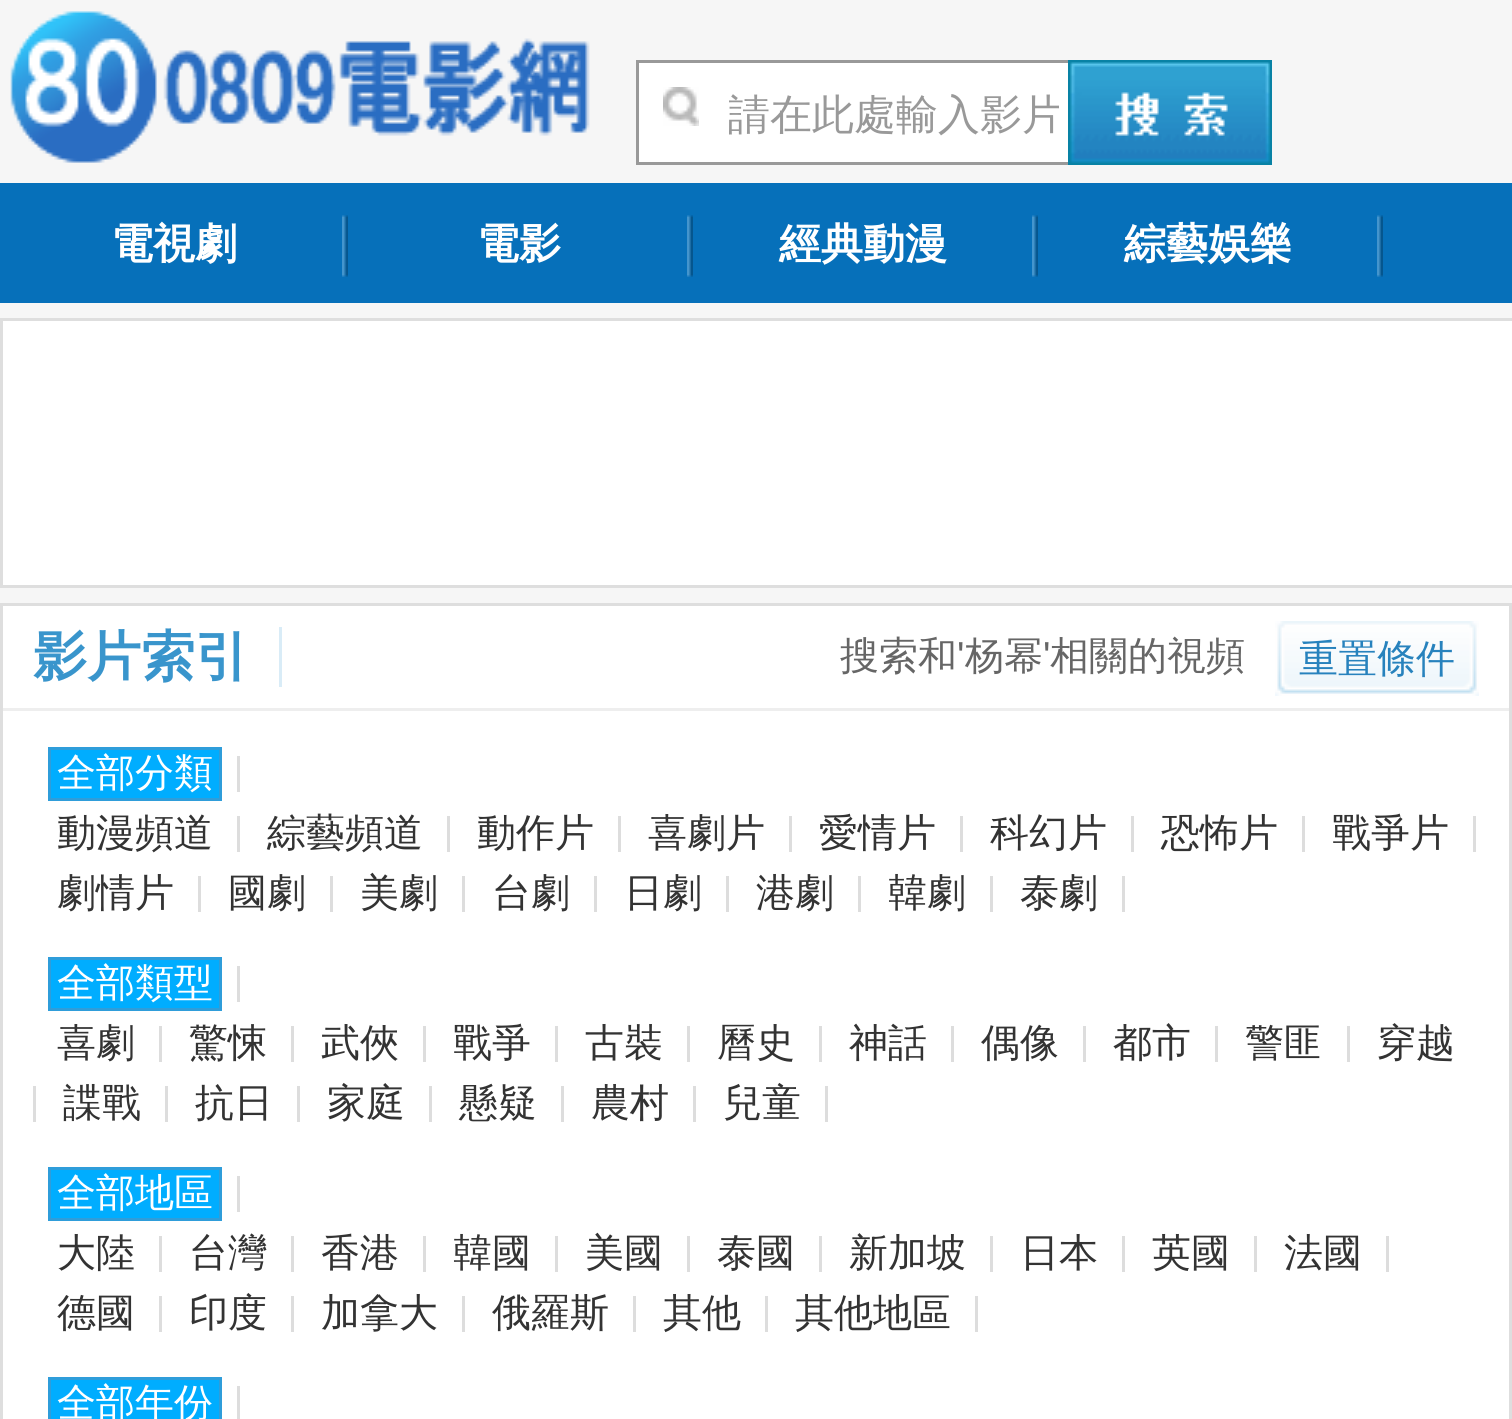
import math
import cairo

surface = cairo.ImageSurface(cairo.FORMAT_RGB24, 1512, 1419)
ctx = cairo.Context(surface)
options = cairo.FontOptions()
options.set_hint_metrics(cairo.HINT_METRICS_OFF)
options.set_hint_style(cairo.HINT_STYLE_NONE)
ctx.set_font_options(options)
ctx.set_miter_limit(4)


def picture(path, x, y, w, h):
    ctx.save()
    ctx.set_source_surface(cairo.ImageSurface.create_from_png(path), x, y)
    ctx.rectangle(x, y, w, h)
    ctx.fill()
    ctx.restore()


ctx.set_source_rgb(0.961, 0.961, 0.961)
ctx.paint()
picture("img1.png", 10, 11, 580, 152)
ctx.set_source_rgb(1, 1, 1)
ctx.rectangle(639, 63, 429, 99)
ctx.fill()
picture("img2.png", 663, 87, 36, 39)
ctx.set_source_rgb(0.6, 0.6, 0.6)
ctx.rectangle(636, 60, 432, 3)
ctx.fill()
ctx.rectangle(636, 162, 432, 3)
ctx.fill()
ctx.rectangle(636, 60, 3, 105)
ctx.fill()
ctx.save()
ctx.rectangle(729, 84, 330, 60)
ctx.clip()
ctx.select_font_face("WenQuanYi Zen Hei Medium")
ctx.set_font_size(42)
ctx.move_to(728, 129)
ctx.show_text("請在此處輸入影片")
ctx.restore()
picture("img3.png", 1068, 60, 204, 105)
ctx.set_source_rgb(0.027, 0.439, 0.729)
ctx.rectangle(0, 183, 1512, 120)
ctx.fill()
picture("img4.png", 342, 215, 6, 62)
ctx.select_font_face("WenQuanYi Zen Hei", cairo.FONT_SLANT_NORMAL, cairo.FONT_WEIGHT_BOLD)
ctx.set_font_size(42)
ctx.set_source_rgb(1, 1, 1)
ctx.move_to(111, 258)
ctx.show_text("電視劇")
picture("img5.png", 687, 215, 6, 62)
ctx.move_to(477, 258)
ctx.show_text("電影")
picture("img4.png", 1032, 215, 6, 62)
ctx.move_to(779, 258)
ctx.show_text("經典動漫")
picture("img5.png", 1377, 215, 6, 62)
ctx.move_to(1124, 258)
ctx.show_text("綜藝娛樂")
ctx.rectangle(1.5, 319.5, 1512, 267)
ctx.fill_preserve()
ctx.set_source_rgb(0.871, 0.871, 0.871)
ctx.set_line_width(3)
ctx.stroke()
ctx.set_source_rgb(1, 1, 1)
ctx.rectangle(1.5, 604.5, 1509, 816)
ctx.fill_preserve()
ctx.set_source_rgb(0.871, 0.871, 0.871)
ctx.stroke()
ctx.set_source_rgb(0.933, 0.933, 0.933)
ctx.rectangle(3, 708, 1506, 3)
ctx.fill()
ctx.set_font_size(54)
ctx.set_source_rgb(0.224, 0.584, 0.8)
ctx.move_to(33, 675)
ctx.show_text("影片索引")
ctx.set_source_rgb(0.851, 0.925, 0.965)
ctx.rectangle(279, 627, 3, 60)
ctx.fill()
ctx.select_font_face("WenQuanYi Zen Hei Medium")
ctx.set_font_size(39)
ctx.set_source_rgb(0.4, 0.4, 0.4)
ctx.move_to(840, 669)
ctx.show_text("搜索和")
ctx.select_font_face("Liberation Sans")
ctx.move_to(957, 669)
ctx.show_text("'")
ctx.select_font_face("WenQuanYi Zen Hei Medium")
ctx.move_to(965, 669)
ctx.show_text("杨幂")
ctx.select_font_face("Liberation Sans")
ctx.move_to(1043, 669)
ctx.show_text("'")
ctx.select_font_face("WenQuanYi Zen Hei Medium")
ctx.move_to(1050, 669)
ctx.show_text("相關的視頻")
picture("img6.png", 1275, 621, 204, 75)
ctx.set_source_rgb(0.153, 0.51, 0.741)
ctx.move_to(1299, 672)
ctx.show_text("重置條件")
ctx.set_source_rgb(0, 0.678, 1)
ctx.rectangle(49.5, 748.5, 171, 51)
ctx.fill_preserve()
ctx.set_source_rgb(0.184, 0.616, 0.855)
ctx.stroke()
ctx.set_source_rgb(1, 1, 1)
ctx.move_to(57, 786)
ctx.show_text("全部分類")
ctx.set_source_rgb(0.867, 0.867, 0.867)
ctx.rectangle(237, 756, 3, 36)
ctx.fill()
ctx.set_source_rgb(0.2, 0.2, 0.2)
ctx.move_to(57, 846)
ctx.show_text("動漫頻道")
ctx.set_source_rgb(0.867, 0.867, 0.867)
ctx.rectangle(237, 816, 3, 36)
ctx.fill()
ctx.set_source_rgb(0.2, 0.2, 0.2)
ctx.move_to(267, 846)
ctx.show_text("綜藝頻道")
ctx.set_source_rgb(0.867, 0.867, 0.867)
ctx.rectangle(447, 816, 3, 36)
ctx.fill()
ctx.set_source_rgb(0.2, 0.2, 0.2)
ctx.move_to(477, 846)
ctx.show_text("動作片")
ctx.set_source_rgb(0.867, 0.867, 0.867)
ctx.rectangle(618, 816, 3, 36)
ctx.fill()
ctx.set_source_rgb(0.2, 0.2, 0.2)
ctx.move_to(648, 846)
ctx.show_text("喜劇片")
ctx.set_source_rgb(0.867, 0.867, 0.867)
ctx.rectangle(789, 816, 3, 36)
ctx.fill()
ctx.set_source_rgb(0.2, 0.2, 0.2)
ctx.move_to(819, 846)
ctx.show_text("愛情片")
ctx.set_source_rgb(0.867, 0.867, 0.867)
ctx.rectangle(960, 816, 3, 36)
ctx.fill()
ctx.set_source_rgb(0.2, 0.2, 0.2)
ctx.move_to(990, 846)
ctx.show_text("科幻片")
ctx.set_source_rgb(0.867, 0.867, 0.867)
ctx.rectangle(1131, 816, 3, 36)
ctx.fill()
ctx.set_source_rgb(0.2, 0.2, 0.2)
ctx.move_to(1161, 846)
ctx.show_text("恐怖片")
ctx.set_source_rgb(0.867, 0.867, 0.867)
ctx.rectangle(1302, 816, 3, 36)
ctx.fill()
ctx.set_source_rgb(0.2, 0.2, 0.2)
ctx.move_to(1332, 846)
ctx.show_text("戰爭片")
ctx.set_source_rgb(0.867, 0.867, 0.867)
ctx.rectangle(1473, 816, 3, 36)
ctx.fill()
ctx.set_source_rgb(0.2, 0.2, 0.2)
ctx.move_to(57, 906)
ctx.show_text("劇情片")
ctx.set_source_rgb(0.867, 0.867, 0.867)
ctx.rectangle(198, 876, 3, 36)
ctx.fill()
ctx.set_source_rgb(0.2, 0.2, 0.2)
ctx.move_to(228, 906)
ctx.show_text("國劇")
ctx.set_source_rgb(0.867, 0.867, 0.867)
ctx.rectangle(330, 876, 3, 36)
ctx.fill()
ctx.set_source_rgb(0.2, 0.2, 0.2)
ctx.move_to(360, 906)
ctx.show_text("美劇")
ctx.set_source_rgb(0.867, 0.867, 0.867)
ctx.rectangle(462, 876, 3, 36)
ctx.fill()
ctx.set_source_rgb(0.2, 0.2, 0.2)
ctx.move_to(492, 906)
ctx.show_text("台劇")
ctx.set_source_rgb(0.867, 0.867, 0.867)
ctx.rectangle(594, 876, 3, 36)
ctx.fill()
ctx.set_source_rgb(0.2, 0.2, 0.2)
ctx.move_to(624, 906)
ctx.show_text("日劇")
ctx.set_source_rgb(0.867, 0.867, 0.867)
ctx.rectangle(726, 876, 3, 36)
ctx.fill()
ctx.set_source_rgb(0.2, 0.2, 0.2)
ctx.move_to(756, 906)
ctx.show_text("港劇")
ctx.set_source_rgb(0.867, 0.867, 0.867)
ctx.rectangle(858, 876, 3, 36)
ctx.fill()
ctx.set_source_rgb(0.2, 0.2, 0.2)
ctx.move_to(888, 906)
ctx.show_text("韓劇")
ctx.set_source_rgb(0.867, 0.867, 0.867)
ctx.rectangle(990, 876, 3, 36)
ctx.fill()
ctx.set_source_rgb(0.2, 0.2, 0.2)
ctx.move_to(1020, 906)
ctx.show_text("泰劇")
ctx.set_source_rgb(0.867, 0.867, 0.867)
ctx.rectangle(1122, 876, 3, 36)
ctx.fill()
ctx.set_source_rgb(0, 0.678, 1)
ctx.rectangle(49.5, 958.5, 171, 51)
ctx.fill_preserve()
ctx.set_source_rgb(0.184, 0.616, 0.855)
ctx.stroke()
ctx.set_source_rgb(1, 1, 1)
ctx.move_to(57, 996)
ctx.show_text("全部類型")
ctx.set_source_rgb(0.867, 0.867, 0.867)
ctx.rectangle(237, 966, 3, 36)
ctx.fill()
ctx.set_source_rgb(0.2, 0.2, 0.2)
ctx.move_to(57, 1056)
ctx.show_text("喜劇")
ctx.set_source_rgb(0.867, 0.867, 0.867)
ctx.rectangle(159, 1026, 3, 36)
ctx.fill()
ctx.set_source_rgb(0.2, 0.2, 0.2)
ctx.move_to(189, 1056)
ctx.show_text("驚悚")
ctx.set_source_rgb(0.867, 0.867, 0.867)
ctx.rectangle(291, 1026, 3, 36)
ctx.fill()
ctx.set_source_rgb(0.2, 0.2, 0.2)
ctx.move_to(321, 1056)
ctx.show_text("武俠")
ctx.set_source_rgb(0.867, 0.867, 0.867)
ctx.rectangle(423, 1026, 3, 36)
ctx.fill()
ctx.set_source_rgb(0.2, 0.2, 0.2)
ctx.move_to(453, 1056)
ctx.show_text("戰爭")
ctx.set_source_rgb(0.867, 0.867, 0.867)
ctx.rectangle(555, 1026, 3, 36)
ctx.fill()
ctx.set_source_rgb(0.2, 0.2, 0.2)
ctx.move_to(585, 1056)
ctx.show_text("古裝")
ctx.set_source_rgb(0.867, 0.867, 0.867)
ctx.rectangle(687, 1026, 3, 36)
ctx.fill()
ctx.set_source_rgb(0.2, 0.2, 0.2)
ctx.move_to(717, 1056)
ctx.show_text("曆史")
ctx.set_source_rgb(0.867, 0.867, 0.867)
ctx.rectangle(819, 1026, 3, 36)
ctx.fill()
ctx.set_source_rgb(0.2, 0.2, 0.2)
ctx.move_to(849, 1056)
ctx.show_text("神話")
ctx.set_source_rgb(0.867, 0.867, 0.867)
ctx.rectangle(951, 1026, 3, 36)
ctx.fill()
ctx.set_source_rgb(0.2, 0.2, 0.2)
ctx.move_to(981, 1056)
ctx.show_text("偶像")
ctx.set_source_rgb(0.867, 0.867, 0.867)
ctx.rectangle(1083, 1026, 3, 36)
ctx.fill()
ctx.set_source_rgb(0.2, 0.2, 0.2)
ctx.move_to(1113, 1056)
ctx.show_text("都市")
ctx.set_source_rgb(0.867, 0.867, 0.867)
ctx.rectangle(1215, 1026, 3, 36)
ctx.fill()
ctx.set_source_rgb(0.2, 0.2, 0.2)
ctx.move_to(1245, 1056)
ctx.show_text("警匪")
ctx.set_source_rgb(0.867, 0.867, 0.867)
ctx.rectangle(1347, 1026, 3, 36)
ctx.fill()
ctx.set_source_rgb(0.2, 0.2, 0.2)
ctx.move_to(1377, 1056)
ctx.show_text("穿越")
ctx.set_source_rgb(0.867, 0.867, 0.867)
ctx.rectangle(33, 1086, 3, 36)
ctx.fill()
ctx.set_source_rgb(0.2, 0.2, 0.2)
ctx.move_to(63, 1116)
ctx.show_text("諜戰")
ctx.set_source_rgb(0.867, 0.867, 0.867)
ctx.rectangle(165, 1086, 3, 36)
ctx.fill()
ctx.set_source_rgb(0.2, 0.2, 0.2)
ctx.move_to(195, 1116)
ctx.show_text("抗日")
ctx.set_source_rgb(0.867, 0.867, 0.867)
ctx.rectangle(297, 1086, 3, 36)
ctx.fill()
ctx.set_source_rgb(0.2, 0.2, 0.2)
ctx.move_to(327, 1116)
ctx.show_text("家庭")
ctx.set_source_rgb(0.867, 0.867, 0.867)
ctx.rectangle(429, 1086, 3, 36)
ctx.fill()
ctx.set_source_rgb(0.2, 0.2, 0.2)
ctx.move_to(459, 1116)
ctx.show_text("懸疑")
ctx.set_source_rgb(0.867, 0.867, 0.867)
ctx.rectangle(561, 1086, 3, 36)
ctx.fill()
ctx.set_source_rgb(0.2, 0.2, 0.2)
ctx.move_to(591, 1116)
ctx.show_text("農村")
ctx.set_source_rgb(0.867, 0.867, 0.867)
ctx.rectangle(693, 1086, 3, 36)
ctx.fill()
ctx.set_source_rgb(0.2, 0.2, 0.2)
ctx.move_to(723, 1116)
ctx.show_text("兒童")
ctx.set_source_rgb(0.867, 0.867, 0.867)
ctx.rectangle(825, 1086, 3, 36)
ctx.fill()
ctx.set_source_rgb(0, 0.678, 1)
ctx.rectangle(49.5, 1168.5, 171, 51)
ctx.fill_preserve()
ctx.set_source_rgb(0.184, 0.616, 0.855)
ctx.stroke()
ctx.set_source_rgb(1, 1, 1)
ctx.move_to(57, 1206)
ctx.show_text("全部地區")
ctx.set_source_rgb(0.867, 0.867, 0.867)
ctx.rectangle(237, 1176, 3, 36)
ctx.fill()
ctx.set_source_rgb(0.2, 0.2, 0.2)
ctx.move_to(57, 1266)
ctx.show_text("大陸")
ctx.set_source_rgb(0.867, 0.867, 0.867)
ctx.rectangle(159, 1236, 3, 36)
ctx.fill()
ctx.set_source_rgb(0.2, 0.2, 0.2)
ctx.move_to(189, 1266)
ctx.show_text("台灣")
ctx.set_source_rgb(0.867, 0.867, 0.867)
ctx.rectangle(291, 1236, 3, 36)
ctx.fill()
ctx.set_source_rgb(0.2, 0.2, 0.2)
ctx.move_to(321, 1266)
ctx.show_text("香港")
ctx.set_source_rgb(0.867, 0.867, 0.867)
ctx.rectangle(423, 1236, 3, 36)
ctx.fill()
ctx.set_source_rgb(0.2, 0.2, 0.2)
ctx.move_to(453, 1266)
ctx.show_text("韓國")
ctx.set_source_rgb(0.867, 0.867, 0.867)
ctx.rectangle(555, 1236, 3, 36)
ctx.fill()
ctx.set_source_rgb(0.2, 0.2, 0.2)
ctx.move_to(585, 1266)
ctx.show_text("美國")
ctx.set_source_rgb(0.867, 0.867, 0.867)
ctx.rectangle(687, 1236, 3, 36)
ctx.fill()
ctx.set_source_rgb(0.2, 0.2, 0.2)
ctx.move_to(717, 1266)
ctx.show_text("泰國")
ctx.set_source_rgb(0.867, 0.867, 0.867)
ctx.rectangle(819, 1236, 3, 36)
ctx.fill()
ctx.set_source_rgb(0.2, 0.2, 0.2)
ctx.move_to(849, 1266)
ctx.show_text("新加坡")
ctx.set_source_rgb(0.867, 0.867, 0.867)
ctx.rectangle(990, 1236, 3, 36)
ctx.fill()
ctx.set_source_rgb(0.2, 0.2, 0.2)
ctx.move_to(1020, 1266)
ctx.show_text("日本")
ctx.set_source_rgb(0.867, 0.867, 0.867)
ctx.rectangle(1122, 1236, 3, 36)
ctx.fill()
ctx.set_source_rgb(0.2, 0.2, 0.2)
ctx.move_to(1152, 1266)
ctx.show_text("英國")
ctx.set_source_rgb(0.867, 0.867, 0.867)
ctx.rectangle(1254, 1236, 3, 36)
ctx.fill()
ctx.set_source_rgb(0.2, 0.2, 0.2)
ctx.move_to(1284, 1266)
ctx.show_text("法國")
ctx.set_source_rgb(0.867, 0.867, 0.867)
ctx.rectangle(1386, 1236, 3, 36)
ctx.fill()
ctx.set_source_rgb(0.2, 0.2, 0.2)
ctx.move_to(57, 1326)
ctx.show_text("德國")
ctx.set_source_rgb(0.867, 0.867, 0.867)
ctx.rectangle(159, 1296, 3, 36)
ctx.fill()
ctx.set_source_rgb(0.2, 0.2, 0.2)
ctx.move_to(189, 1326)
ctx.show_text("印度")
ctx.set_source_rgb(0.867, 0.867, 0.867)
ctx.rectangle(291, 1296, 3, 36)
ctx.fill()
ctx.set_source_rgb(0.2, 0.2, 0.2)
ctx.move_to(321, 1326)
ctx.show_text("加拿大")
ctx.set_source_rgb(0.867, 0.867, 0.867)
ctx.rectangle(462, 1296, 3, 36)
ctx.fill()
ctx.set_source_rgb(0.2, 0.2, 0.2)
ctx.move_to(492, 1326)
ctx.show_text("俄羅斯")
ctx.set_source_rgb(0.867, 0.867, 0.867)
ctx.rectangle(633, 1296, 3, 36)
ctx.fill()
ctx.set_source_rgb(0.2, 0.2, 0.2)
ctx.move_to(663, 1326)
ctx.show_text("其他")
ctx.set_source_rgb(0.867, 0.867, 0.867)
ctx.rectangle(765, 1296, 3, 36)
ctx.fill()
ctx.set_source_rgb(0.2, 0.2, 0.2)
ctx.move_to(795, 1326)
ctx.show_text("其他地區")
ctx.set_source_rgb(0.867, 0.867, 0.867)
ctx.rectangle(975, 1296, 3, 36)
ctx.fill()
ctx.set_source_rgb(0, 0.678, 1)
ctx.rectangle(49.5, 1378.5, 171, 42)
ctx.fill_preserve()
ctx.set_source_rgb(0.184, 0.616, 0.855)
ctx.stroke()
ctx.set_source_rgb(1, 1, 1)
ctx.move_to(57, 1416)
ctx.show_text("全部年份")
ctx.set_source_rgb(0.867, 0.867, 0.867)
ctx.rectangle(237, 1386, 3, 33)
ctx.fill()
surface.write_to_png("page.png")
